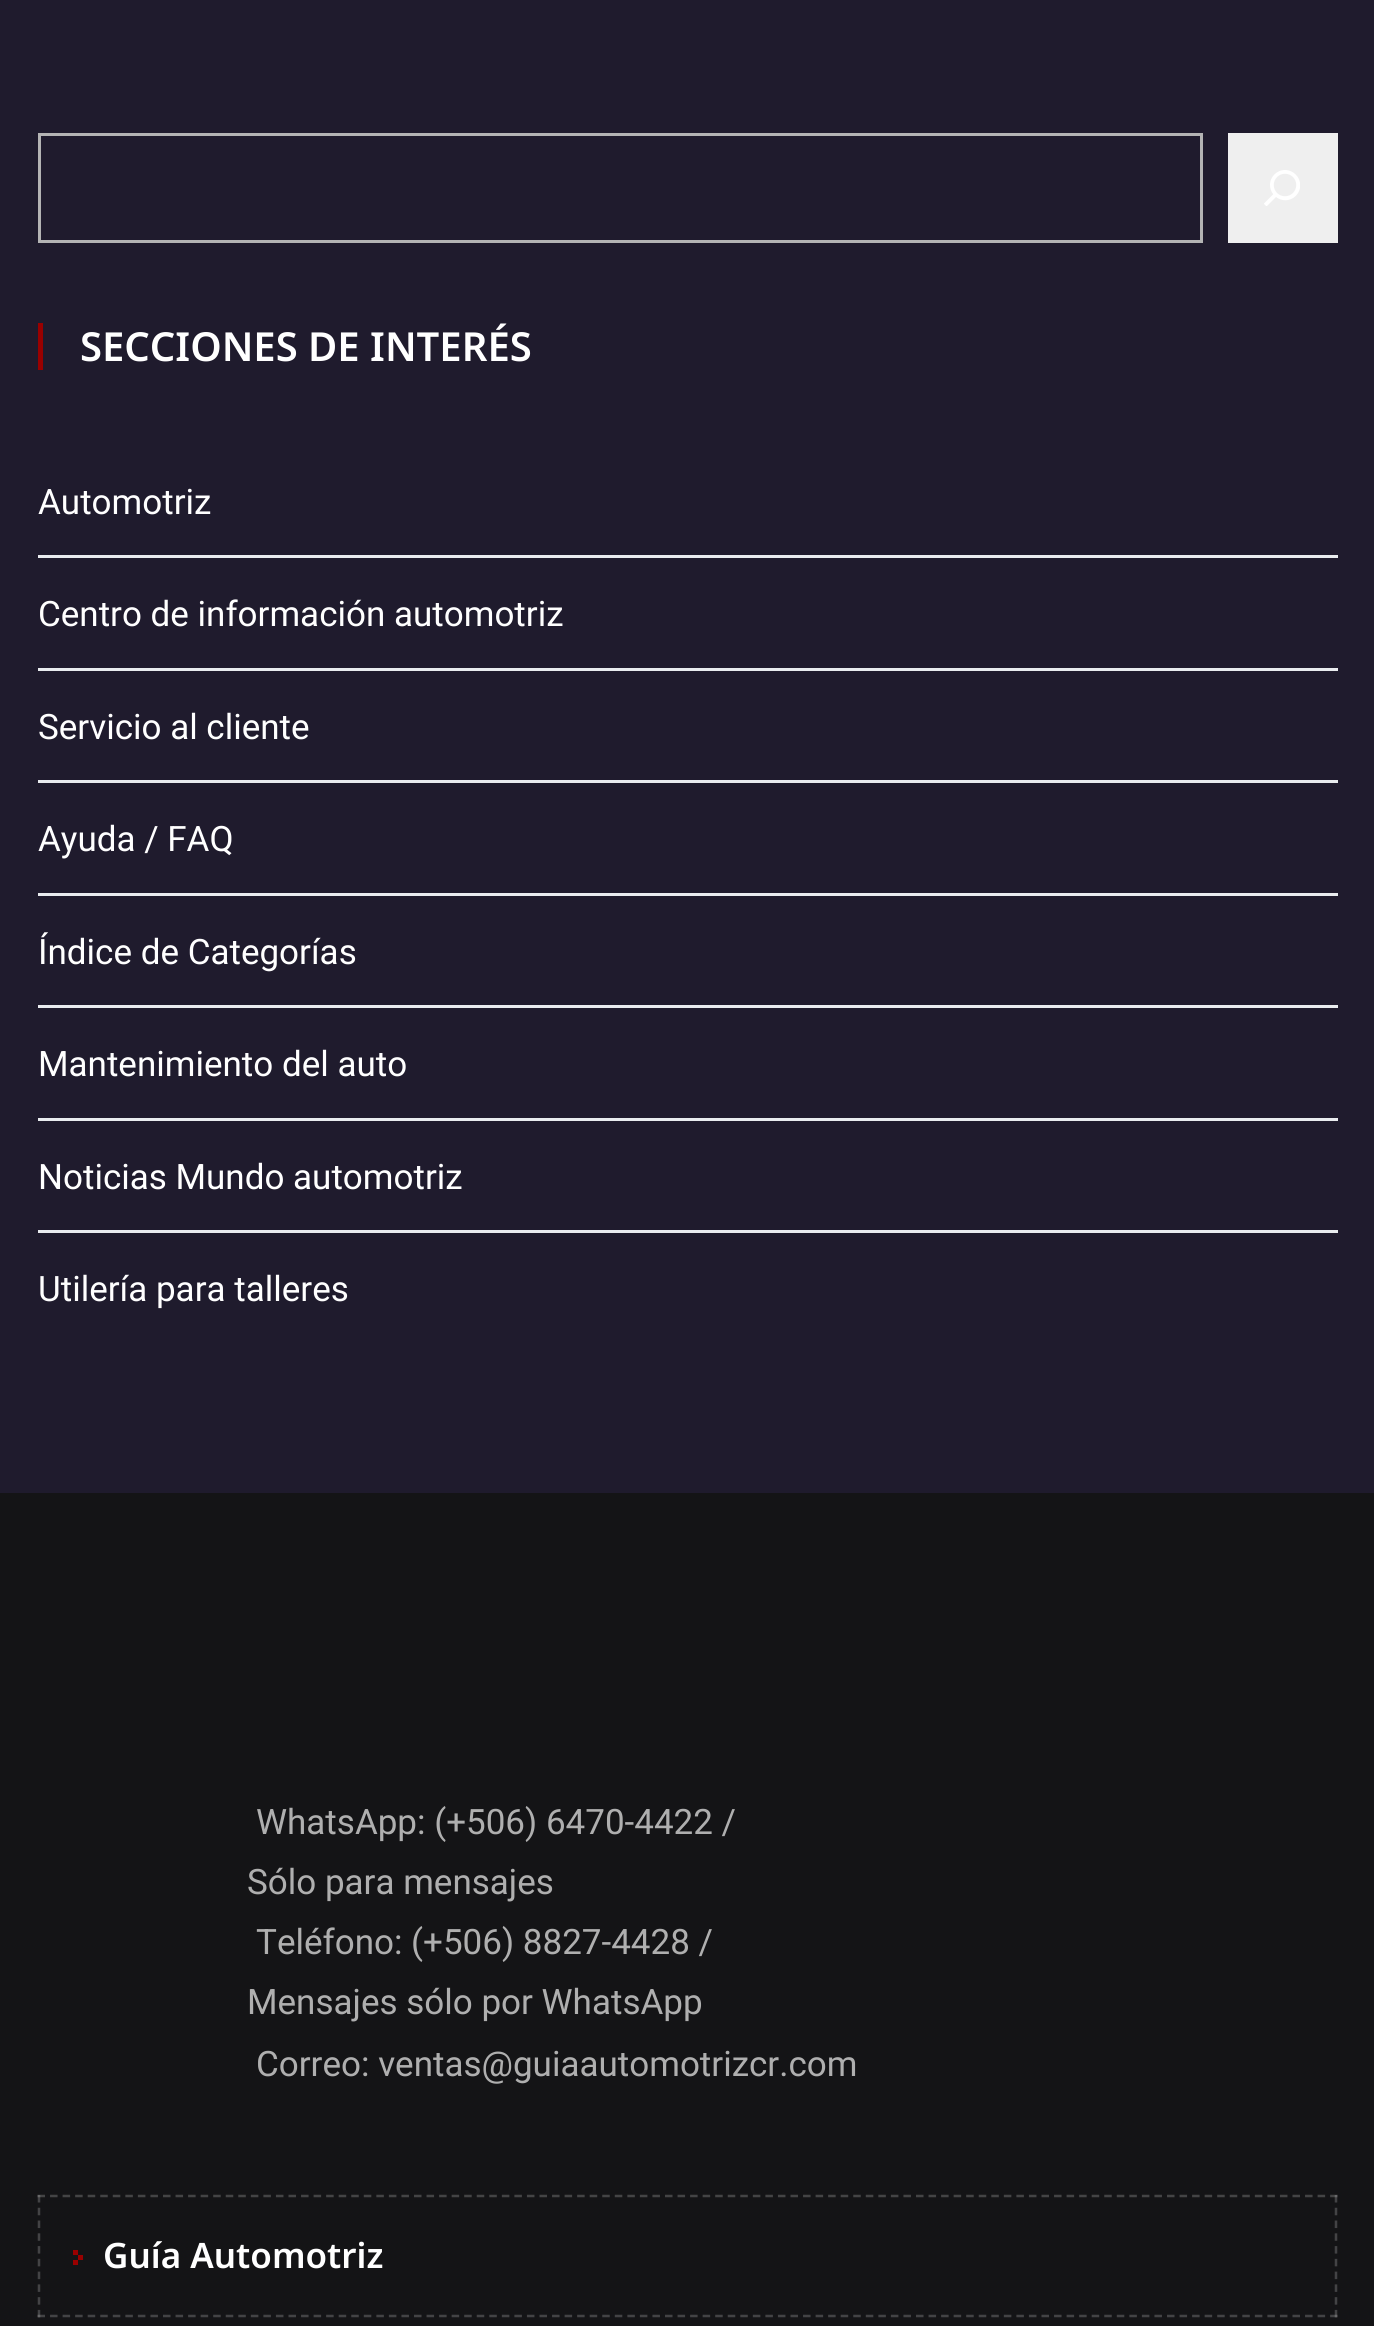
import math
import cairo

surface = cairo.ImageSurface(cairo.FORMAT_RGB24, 1374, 2326)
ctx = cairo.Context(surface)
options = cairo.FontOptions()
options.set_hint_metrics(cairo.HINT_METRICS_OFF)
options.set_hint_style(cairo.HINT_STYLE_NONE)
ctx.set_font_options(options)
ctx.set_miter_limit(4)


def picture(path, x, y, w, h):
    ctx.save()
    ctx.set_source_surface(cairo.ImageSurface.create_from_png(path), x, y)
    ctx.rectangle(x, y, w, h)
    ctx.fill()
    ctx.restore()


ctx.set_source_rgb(0.122, 0.106, 0.176)
ctx.paint()
ctx.rectangle(39.5, 134.5, 1162, 107)
ctx.set_source_rgb(0.706, 0.706, 0.706)
ctx.set_line_width(3)
ctx.stroke()
ctx.set_source_rgb(0.937, 0.937, 0.937)
ctx.rectangle(1228, 133, 110, 110)
ctx.fill()
picture("img1.png", 1264, 170, 36, 36)
ctx.set_source_rgb(0.6, 0, 0)
ctx.rectangle(38, 323, 5, 47)
ctx.fill()
ctx.select_font_face("Noto Sans SemiBold")
ctx.set_font_size(40)
ctx.set_source_rgb(1, 1, 1)
ctx.move_to(80, 361)
ctx.show_text("SECCIONES DE INTERÉS")
ctx.set_source_rgb(0.914, 0.925, 0.937)
ctx.rectangle(38, 555, 1300, 3)
ctx.fill()
ctx.select_font_face("Roboto")
ctx.set_font_size(35)
ctx.set_source_rgb(1, 1, 1)
ctx.move_to(38, 514)
ctx.show_text("Automotriz")
ctx.set_source_rgb(0.914, 0.925, 0.937)
ctx.rectangle(38, 668, 1300, 3)
ctx.fill()
ctx.set_source_rgb(1, 1, 1)
ctx.move_to(38, 626)
ctx.show_text("Centro de información automotriz")
ctx.set_source_rgb(0.914, 0.925, 0.937)
ctx.rectangle(38, 780, 1300, 3)
ctx.fill()
ctx.set_source_rgb(1, 1, 1)
ctx.move_to(38, 739)
ctx.show_text("Servicio al cliente")
ctx.set_source_rgb(0.914, 0.925, 0.937)
ctx.rectangle(38, 893, 1300, 3)
ctx.fill()
ctx.set_source_rgb(1, 1, 1)
ctx.move_to(38, 851)
ctx.show_text("Ayuda / FAQ")
ctx.set_source_rgb(0.914, 0.925, 0.937)
ctx.rectangle(38, 1005, 1300, 3)
ctx.fill()
ctx.set_source_rgb(1, 1, 1)
ctx.move_to(38, 964)
ctx.show_text("Índice de Categorías")
ctx.set_source_rgb(0.914, 0.925, 0.937)
ctx.rectangle(38, 1118, 1300, 3)
ctx.fill()
ctx.set_source_rgb(1, 1, 1)
ctx.move_to(38, 1076)
ctx.show_text("Mantenimiento del auto")
ctx.set_source_rgb(0.914, 0.925, 0.937)
ctx.rectangle(38, 1230, 1300, 3)
ctx.fill()
ctx.set_source_rgb(1, 1, 1)
ctx.move_to(38, 1189)
ctx.show_text("Noticias Mundo automotriz")
ctx.move_to(38, 1301)
ctx.show_text("Utilería para talleres")
ctx.set_source_rgb(0.082, 0.082, 0.086)
ctx.rectangle(0, 1493, 1374, 833)
ctx.fill()
ctx.set_source_rgb(0.686, 0.686, 0.686)
ctx.move_to(256, 1834)
ctx.show_text("WhatsApp: (+506) 6470-4422 /")
ctx.move_to(247, 1894)
ctx.show_text("Sólo para mensajes")
ctx.move_to(256, 1954)
ctx.show_text("Teléfono: (+506) 8827-4428 /")
ctx.move_to(247, 2014)
ctx.show_text("Mensajes sólo por WhatsApp")
ctx.move_to(256, 2076)
ctx.show_text("Correo: ventas@guiaautomotrizcr.com")
ctx.new_path()
ctx.move_to(37.5, 2196)
ctx.line_to(1337.5, 2196)
ctx.set_source_rgb(0.267, 0.267, 0.271)
ctx.set_line_width(2.5)
ctx.set_dash([7.5, 5.05])
ctx.stroke()
ctx.new_path()
ctx.move_to(1336, 2195)
ctx.line_to(1336, 2317.5)
ctx.set_source_rgba(1, 1, 1, 0.2)
ctx.set_dash([7.5, 5.27])
ctx.stroke()
ctx.new_path()
ctx.move_to(37.5, 2316)
ctx.line_to(1337.5, 2316)
ctx.set_dash([7.5, 5.05])
ctx.stroke()
ctx.new_path()
ctx.move_to(39, 2195)
ctx.line_to(39, 2317.5)
ctx.set_dash([7.5, 5.27])
ctx.stroke()
ctx.set_source_rgb(0.6, 0, 0)
ctx.rectangle(73, 2250, 5, 5)
ctx.fill()
ctx.rectangle(73, 2260, 5, 5)
ctx.fill()
ctx.rectangle(78, 2255, 5, 5)
ctx.fill()
ctx.select_font_face("Noto Sans SemiBold")
ctx.set_source_rgb(1, 1, 1)
ctx.move_to(103, 2268)
ctx.show_text("Guía Automotriz")
surface.write_to_png("page.png")
